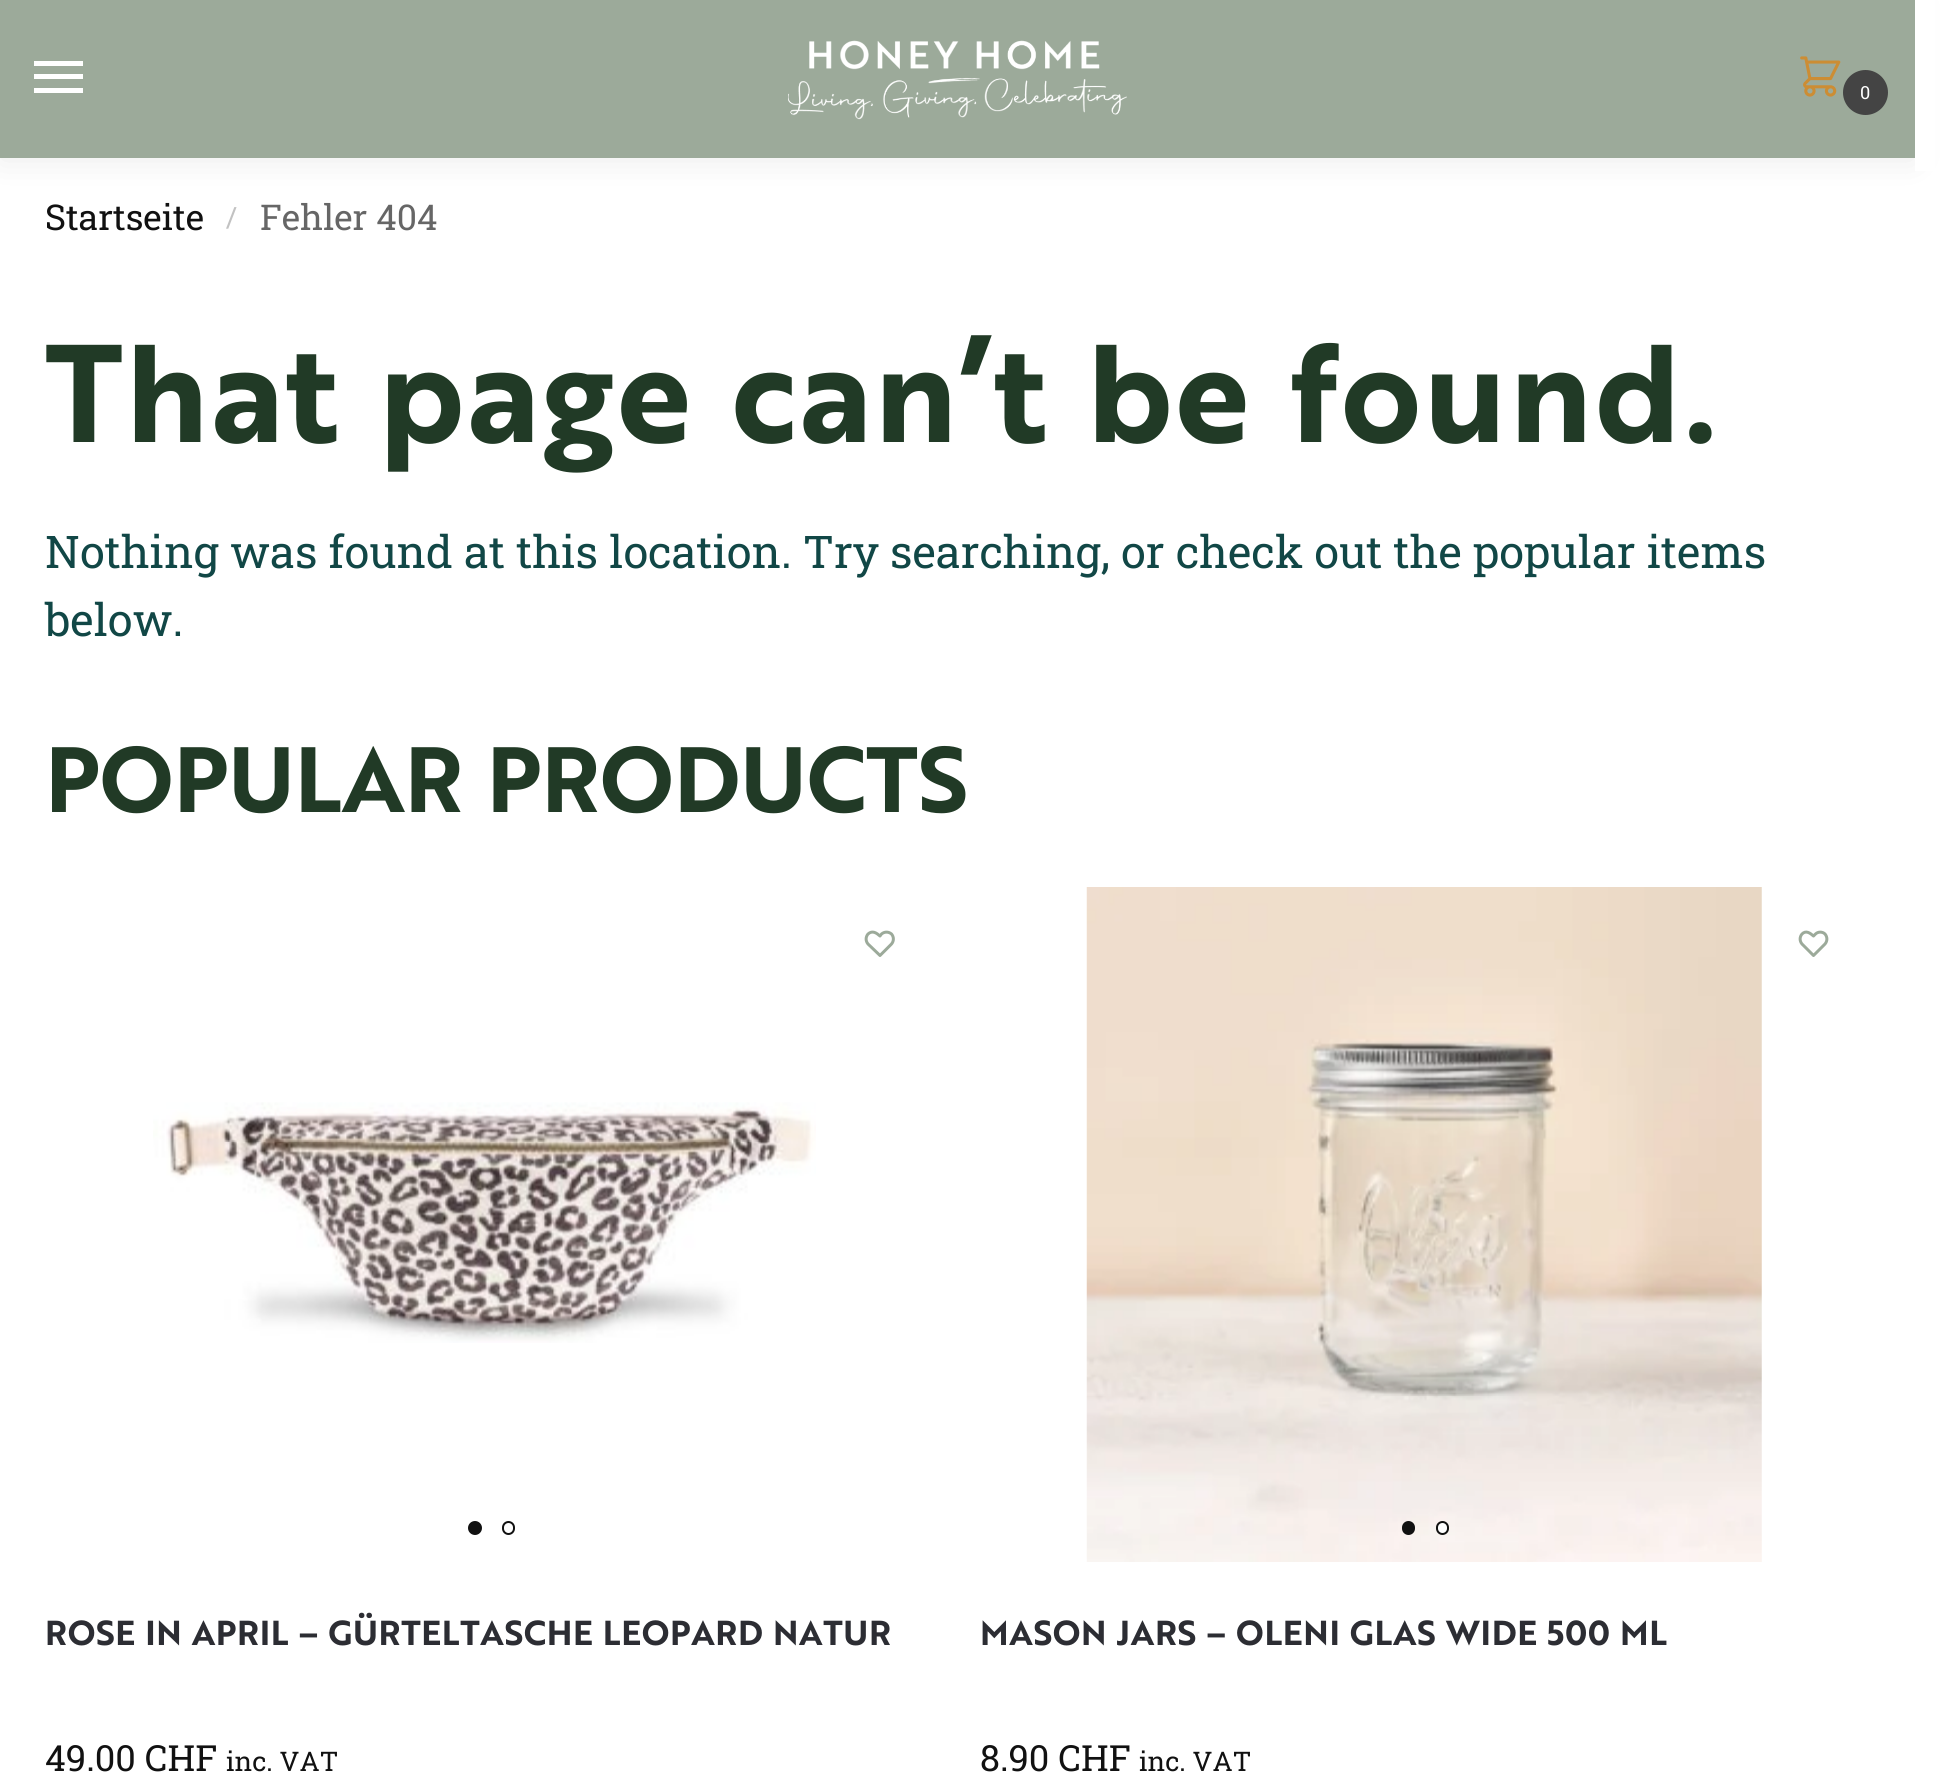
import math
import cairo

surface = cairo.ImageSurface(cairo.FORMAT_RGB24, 1948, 1772)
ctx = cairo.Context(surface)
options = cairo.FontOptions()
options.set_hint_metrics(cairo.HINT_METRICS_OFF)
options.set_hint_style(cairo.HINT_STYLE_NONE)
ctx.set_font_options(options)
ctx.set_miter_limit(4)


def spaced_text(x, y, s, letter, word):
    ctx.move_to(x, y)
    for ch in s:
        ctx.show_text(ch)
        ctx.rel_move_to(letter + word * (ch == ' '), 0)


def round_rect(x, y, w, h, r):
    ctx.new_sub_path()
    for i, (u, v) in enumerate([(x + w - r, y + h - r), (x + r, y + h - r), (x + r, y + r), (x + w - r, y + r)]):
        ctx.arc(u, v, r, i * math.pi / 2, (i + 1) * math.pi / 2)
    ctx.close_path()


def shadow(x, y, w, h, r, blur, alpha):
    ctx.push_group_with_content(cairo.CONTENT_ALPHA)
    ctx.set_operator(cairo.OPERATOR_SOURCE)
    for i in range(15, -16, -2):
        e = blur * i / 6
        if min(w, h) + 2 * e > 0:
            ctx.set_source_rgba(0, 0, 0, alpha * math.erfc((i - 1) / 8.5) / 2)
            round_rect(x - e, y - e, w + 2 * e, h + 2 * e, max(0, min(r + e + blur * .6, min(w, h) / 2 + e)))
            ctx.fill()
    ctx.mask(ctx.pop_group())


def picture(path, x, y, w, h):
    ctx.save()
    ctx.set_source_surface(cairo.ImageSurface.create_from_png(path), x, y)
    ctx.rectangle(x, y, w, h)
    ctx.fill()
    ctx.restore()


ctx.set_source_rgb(1, 1, 1)
ctx.paint()
ctx.set_source_rgb(0, 0, 0)
shadow(0, 2, 1915, 158, 0, 17, 0.08)
ctx.set_source_rgb(0.612, 0.667, 0.604)
ctx.rectangle(0, 0, 1915, 158)
ctx.fill()
ctx.set_source_rgb(1, 1, 1)
ctx.rectangle(34, 61, 49, 5)
ctx.fill()
ctx.rectangle(34, 74, 49, 5)
ctx.fill()
ctx.rectangle(34, 88, 49, 5)
ctx.fill()
picture("img1.png", 788, 40, 339, 80)
picture("img2.png", 1800, 56, 41, 41)
ctx.set_source_rgb(0.267, 0.267, 0.267)
ctx.arc(1865.5, 92.5, 21.5, 0, 2 * math.pi)
ctx.fill_preserve()
ctx.stroke()
ctx.select_font_face("Roboto Slab")
ctx.set_font_size(18)
ctx.set_source_rgb(1, 1, 1)
ctx.move_to(1860, 99)
ctx.show_text("0")
ctx.rectangle(1915, 0, 20, 171)
ctx.fill()
ctx.set_font_size(35.5)
ctx.set_source_rgb(0.067, 0.067, 0.067)
ctx.move_to(45, 230)
ctx.show_text("Startseite")
ctx.set_font_size(28)
ctx.set_source_rgb(0.761, 0.761, 0.761)
ctx.move_to(226, 227)
ctx.show_text("/")
ctx.set_font_size(35.5)
ctx.set_source_rgb(0.4, 0.4, 0.4)
ctx.move_to(260, 230)
ctx.show_text("Fehler 404")
ctx.select_font_face("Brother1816", cairo.FONT_SLANT_NORMAL, cairo.FONT_WEIGHT_BOLD)
ctx.set_font_size(135)
ctx.set_source_rgb(0.129, 0.227, 0.149)
spaced_text(45, 442, "That page can’t be found.", 2.7, 0)
ctx.select_font_face("Roboto Slab")
ctx.set_font_size(45)
ctx.set_source_rgb(0.067, 0.278, 0.275)
ctx.move_to(45, 568)
ctx.show_text("Nothing was found at this location. Try searching, or check out the popular items")
ctx.move_to(45, 636)
ctx.show_text("below.")
ctx.select_font_face("Brother1816", cairo.FONT_SLANT_NORMAL, cairo.FONT_WEIGHT_BOLD)
ctx.set_font_size(90)
ctx.set_source_rgb(0.129, 0.227, 0.149)
ctx.move_to(45, 812)
ctx.show_text("POPULAR PRODUCTS")
ctx.new_path()
ctx.move_to(868, 934)
ctx.curve_to(865.5, 937, 865.5, 941, 868, 944)
ctx.line_to(880, 955.5)
ctx.line_to(891.5, 944)
ctx.curve_to(894, 941, 894, 937, 891.5, 934)
ctx.curve_to(888.5, 931.5, 884.5, 931.5, 881.5, 934)
ctx.line_to(880, 936)
ctx.curve_to(876.5, 933, 872.5, 930, 868, 934)
ctx.close_path()
ctx.set_source_rgb(0.612, 0.667, 0.604)
ctx.set_line_width(3)
ctx.set_line_cap(cairo.LINE_CAP_ROUND)
ctx.set_line_join(cairo.LINE_JOIN_ROUND)
ctx.stroke()
picture("img3.png", 153, 1102, 663, 241)
ctx.set_source_rgb(0.067, 0.067, 0.067)
ctx.arc(475, 1528, 6, 0, 2 * math.pi)
ctx.fill_preserve()
ctx.set_line_width(2)
ctx.set_line_cap(cairo.LINE_CAP_BUTT)
ctx.set_line_join(cairo.LINE_JOIN_MITER)
ctx.stroke()
round_rect(503, 1522, 11, 12, 5.5)
ctx.stroke()
ctx.set_font_size(33.75)
ctx.set_source_rgb(0.173, 0.176, 0.2)
spaced_text(45, 1645, "ROSE IN APRIL – GÜRTELTASCHE LEOPARD NATUR", 0.65, 0)
ctx.select_font_face("Roboto Slab")
ctx.set_font_size(36)
ctx.set_source_rgb(0.067, 0.067, 0.067)
ctx.move_to(45, 1771)
ctx.show_text("49.00 CHF")
ctx.set_font_size(27)
ctx.move_to(226, 1771)
ctx.show_text("inc. VAT")
picture("img4.png", 1086, 887, 676, 675)
round_rect(1403, 1522, 11, 12, 5.5)
ctx.fill_preserve()
ctx.stroke()
ctx.set_source_rgb(1, 1, 1)
round_rect(1437, 1522, 11, 12, 5.5)
ctx.fill_preserve()
ctx.set_source_rgb(0.067, 0.067, 0.067)
ctx.stroke()
ctx.new_path()
ctx.move_to(1802, 934)
ctx.curve_to(1799.5, 937, 1799.5, 941, 1802, 944)
ctx.line_to(1813.5, 955.5)
ctx.line_to(1825, 944)
ctx.curve_to(1827.5, 941, 1827.5, 937, 1825, 934)
ctx.curve_to(1822.5, 931.5, 1818, 931.5, 1815.5, 934)
ctx.line_to(1813.5, 936)
ctx.curve_to(1810, 933, 1806, 930, 1802, 934)
ctx.close_path()
ctx.set_source_rgb(0.612, 0.667, 0.604)
ctx.set_line_width(3)
ctx.set_line_cap(cairo.LINE_CAP_ROUND)
ctx.set_line_join(cairo.LINE_JOIN_ROUND)
ctx.stroke()
ctx.select_font_face("Brother1816", cairo.FONT_SLANT_NORMAL, cairo.FONT_WEIGHT_BOLD)
ctx.set_font_size(33.75)
ctx.set_source_rgb(0.173, 0.176, 0.2)
spaced_text(980, 1645, "MASON JARS – OLENI GLAS WIDE 500 ML", 0.65, 0)
ctx.select_font_face("Roboto Slab")
ctx.set_font_size(36)
ctx.set_source_rgb(0.067, 0.067, 0.067)
ctx.move_to(980, 1771)
ctx.show_text("8.90 CHF")
ctx.set_font_size(27)
ctx.move_to(1139, 1771)
ctx.show_text("inc. VAT")
surface.write_to_png("page.png")
